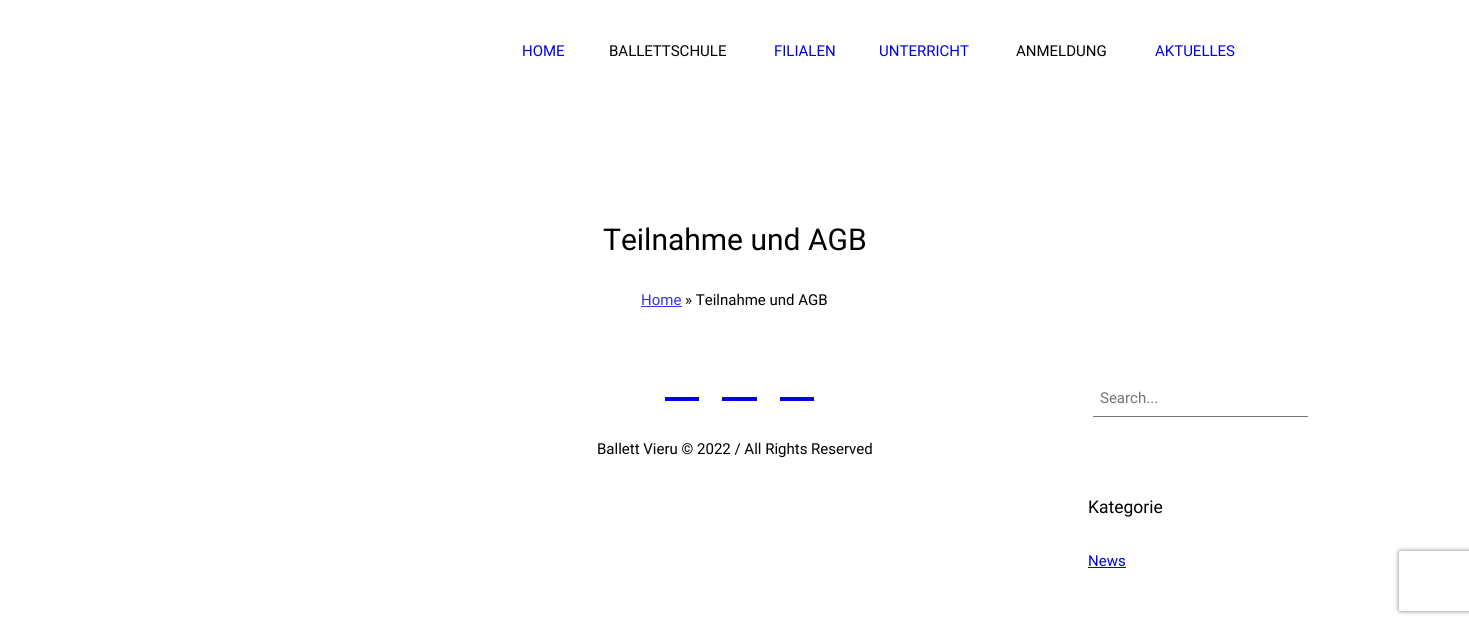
import math
import cairo

surface = cairo.ImageSurface(cairo.FORMAT_RGB24, 1469, 625)
ctx = cairo.Context(surface)
options = cairo.FontOptions()
options.set_hint_metrics(cairo.HINT_METRICS_OFF)
options.set_hint_style(cairo.HINT_STYLE_NONE)
ctx.set_font_options(options)
ctx.set_miter_limit(4)


def round_rect(x, y, w, h, r):
    ctx.new_sub_path()
    for i, (u, v) in enumerate([(x + w - r, y + h - r), (x + r, y + h - r), (x + r, y + r), (x + w - r, y + r)]):
        ctx.arc(u, v, r, i * math.pi / 2, (i + 1) * math.pi / 2)
    ctx.close_path()


def shadow(x, y, w, h, r, blur, alpha):
    ctx.push_group_with_content(cairo.CONTENT_ALPHA)
    ctx.set_operator(cairo.OPERATOR_SOURCE)
    for i in range(15, -16, -2):
        e = blur * i / 6
        if min(w, h) + 2 * e > 0:
            ctx.set_source_rgba(0, 0, 0, alpha * math.erfc((i - 1) / 8.5) / 2)
            round_rect(x - e, y - e, w + 2 * e, h + 2 * e, max(0, min(r + e + blur * .6, min(w, h) / 2 + e)))
            ctx.fill()
    ctx.mask(ctx.pop_group())


ctx.set_source_rgb(1, 1, 1)
ctx.paint()
ctx.select_font_face("Roboto")
ctx.set_font_size(15)
ctx.set_source_rgb(0, 0, 0.933)
ctx.move_to(522, 56)
ctx.show_text("HOME")
ctx.set_source_rgb(0, 0, 0)
ctx.move_to(609, 56)
ctx.show_text("BALLETTSCHULE")
ctx.set_source_rgb(0, 0, 0.933)
ctx.move_to(774, 56)
ctx.show_text("FILIALEN")
ctx.move_to(879, 56)
ctx.show_text("UNTERRICHT")
ctx.set_source_rgb(0, 0, 0)
ctx.move_to(1016, 56)
ctx.show_text("ANMELDUNG")
ctx.set_source_rgb(0, 0, 0.933)
ctx.move_to(1155, 56)
ctx.show_text("AKTUELLES")
ctx.set_font_size(30)
ctx.set_source_rgb(0, 0, 0)
ctx.move_to(603, 250)
ctx.show_text("Teilnahme und AGB")
ctx.set_font_size(15)
ctx.set_source_rgb(0.2, 0.2, 0.945)
ctx.move_to(641, 305)
ctx.show_text("Home")
ctx.rectangle(641, 306, 41, 1)
ctx.fill()
ctx.set_source_rgb(0, 0, 0)
ctx.move_to(685, 305)
ctx.show_text("» Teilnahme und AGB")
ctx.set_source_rgb(0.463, 0.463, 0.463)
ctx.rectangle(1093, 416, 215, 1)
ctx.fill()
ctx.set_source_rgb(0.459, 0.459, 0.459)
ctx.move_to(1100, 403)
ctx.show_text("Search...")
ctx.set_font_size(17.5)
ctx.set_source_rgb(0, 0, 0)
ctx.move_to(1088, 513)
ctx.show_text("Kategorie")
ctx.set_font_size(15)
ctx.set_source_rgb(0, 0, 0.933)
ctx.move_to(1088, 566)
ctx.show_text("News")
ctx.rectangle(1088, 567, 38, 1)
ctx.fill()
ctx.rectangle(665, 397, 34, 4)
ctx.fill()
ctx.rectangle(722, 397, 35, 4)
ctx.fill()
ctx.rectangle(780, 397, 34, 4)
ctx.fill()
ctx.set_source_rgb(0, 0, 0)
ctx.move_to(597, 454)
ctx.show_text("Ballett Vieru © 2022 / All Rights Reserved")
ctx.save()
ctx.set_fill_rule(cairo.FILL_RULE_EVEN_ODD)
ctx.new_path()
ctx.move_to(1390, 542)
ctx.line_to(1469, 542)
ctx.line_to(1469, 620)
ctx.line_to(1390, 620)
ctx.close_path()
ctx.move_to(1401, 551)
ctx.line_to(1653, 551)
ctx.curve_to(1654, 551, 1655, 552, 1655, 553)
ctx.line_to(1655, 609)
ctx.curve_to(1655, 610, 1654, 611, 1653, 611)
ctx.line_to(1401, 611)
ctx.curve_to(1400, 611, 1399, 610, 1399, 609)
ctx.line_to(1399, 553)
ctx.curve_to(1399, 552, 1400, 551, 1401, 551)
ctx.close_path()
ctx.clip()
ctx.set_source_rgb(0.502, 0.502, 0.502)
shadow(1399, 551, 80, 60, 2, 2.5, 1)
ctx.restore()
surface.write_to_png("page.png")
